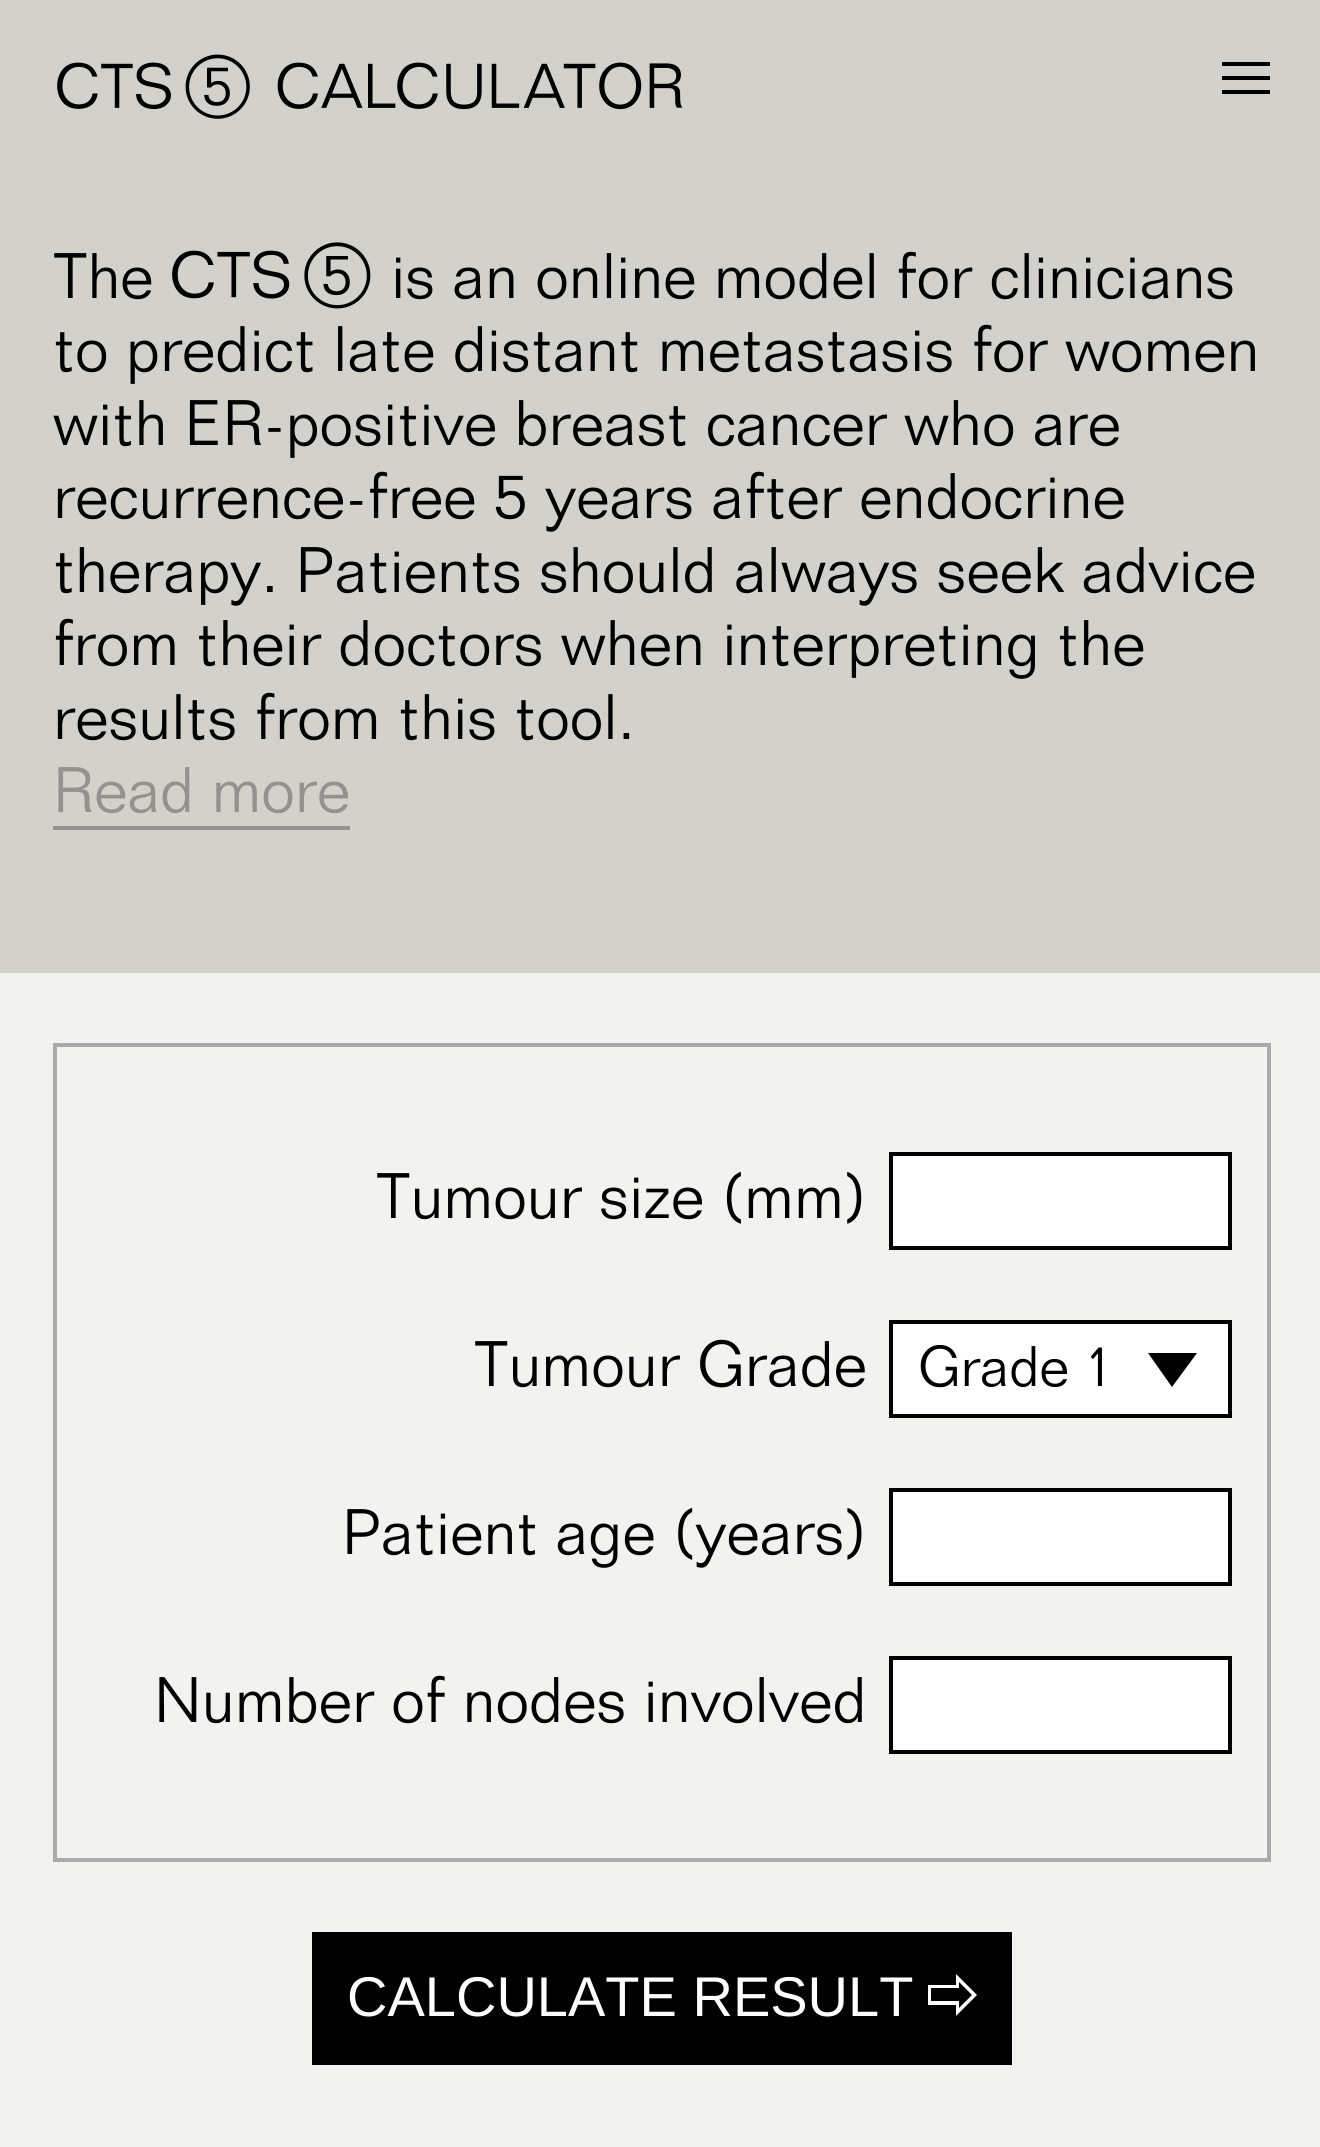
import math
import cairo

surface = cairo.ImageSurface(cairo.FORMAT_RGB24, 1320, 2147)
ctx = cairo.Context(surface)
options = cairo.FontOptions()
options.set_hint_metrics(cairo.HINT_METRICS_OFF)
options.set_hint_style(cairo.HINT_STYLE_NONE)
ctx.set_font_options(options)
ctx.set_miter_limit(4)


def picture(path, x, y, w, h):
    ctx.save()
    ctx.set_source_surface(cairo.ImageSurface.create_from_png(path), x, y)
    ctx.rectangle(x, y, w, h)
    ctx.fill()
    ctx.restore()


ctx.set_source_rgb(0.827, 0.82, 0.796)
ctx.paint()
picture("img1.png", 57, 54, 626, 65)
ctx.set_source_rgb(0, 0, 0)
ctx.new_path()
ctx.move_to(1270, 62)
ctx.line_to(1270, 66)
ctx.line_to(1222, 66)
ctx.line_to(1222, 62)
ctx.close_path()
ctx.move_to(1270, 76)
ctx.line_to(1270, 80)
ctx.line_to(1222, 80)
ctx.line_to(1222, 76)
ctx.close_path()
ctx.move_to(1270, 90)
ctx.line_to(1270, 94)
ctx.line_to(1222, 94)
ctx.line_to(1222, 90)
ctx.close_path()
ctx.fill()
ctx.select_font_face("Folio")
ctx.set_font_size(63)
ctx.move_to(53, 298)
ctx.show_text("The")
picture("img2.png", 172, 242, 199, 67)
ctx.move_to(391, 298)
ctx.show_text("is an online model for clinicians")
ctx.move_to(53, 371)
ctx.show_text("to predict late distant metastasis for women")
ctx.move_to(53, 445)
ctx.show_text("with ER-positive breast cancer who are")
ctx.move_to(53, 518)
ctx.show_text("recurrence-free 5 years after endocrine")
ctx.move_to(53, 592)
ctx.show_text("therapy. Patients should always seek advice")
ctx.move_to(53, 665)
ctx.show_text("from their doctors when interpreting the")
ctx.move_to(53, 739)
ctx.show_text("results from this tool.")
ctx.set_source_rgb(0.58, 0.573, 0.557)
ctx.move_to(53, 812)
ctx.show_text("Read more")
ctx.rectangle(53, 826, 297, 4)
ctx.fill()
ctx.set_source_rgb(0.949, 0.949, 0.937)
ctx.rectangle(0, 973, 1320, 1174)
ctx.fill()
ctx.rectangle(55, 1045, 1214, 815)
ctx.set_source_rgb(0.667, 0.667, 0.667)
ctx.set_line_width(4)
ctx.stroke()
ctx.set_source_rgb(0, 0, 0)
ctx.move_to(376, 1218)
ctx.show_text("Tumour size (mm)")
ctx.set_source_rgb(1, 1, 1)
ctx.rectangle(891, 1154, 339, 94)
ctx.fill_preserve()
ctx.set_source_rgb(0, 0, 0)
ctx.stroke()
ctx.move_to(474, 1386)
ctx.show_text("Tumour Grade")
ctx.set_source_rgb(1, 1, 1)
ctx.rectangle(891, 1322, 339, 94)
ctx.fill_preserve()
ctx.set_source_rgb(0, 0, 0)
ctx.stroke()
ctx.set_font_size(56)
ctx.move_to(918, 1386)
ctx.show_text("Grade 1")
ctx.new_path()
ctx.move_to(1172, 1387)
ctx.line_to(1148, 1353)
ctx.line_to(1197, 1353)
ctx.close_path()
ctx.fill()
ctx.set_font_size(63)
ctx.move_to(342, 1554)
ctx.show_text("Patient age (years)")
ctx.set_source_rgb(1, 1, 1)
ctx.rectangle(891, 1490, 339, 94)
ctx.fill_preserve()
ctx.set_source_rgb(0, 0, 0)
ctx.stroke()
ctx.move_to(154, 1722)
ctx.show_text("Number of nodes involved")
ctx.set_source_rgb(1, 1, 1)
ctx.rectangle(891, 1658, 339, 94)
ctx.fill_preserve()
ctx.set_source_rgb(0, 0, 0)
ctx.stroke()
ctx.rectangle(312, 1932, 700, 133)
ctx.fill()
ctx.select_font_face("Liberation Sans")
ctx.set_font_size(56)
ctx.set_source_rgb(1, 1, 1)
ctx.move_to(347, 2016)
ctx.show_text("CALCULATE RESULT")
ctx.new_path()
ctx.move_to(956, 2016)
ctx.line_to(956, 2005)
ctx.line_to(928, 2005)
ctx.line_to(928, 1985)
ctx.line_to(956, 1985)
ctx.line_to(956, 1974)
ctx.line_to(977, 1995)
ctx.close_path()
ctx.move_to(959, 2001)
ctx.line_to(959, 2008)
ctx.line_to(972, 1995)
ctx.line_to(959, 1982)
ctx.line_to(959, 1988)
ctx.line_to(931, 1988)
ctx.line_to(931, 2001)
ctx.close_path()
ctx.fill()
surface.write_to_png("page.png")
